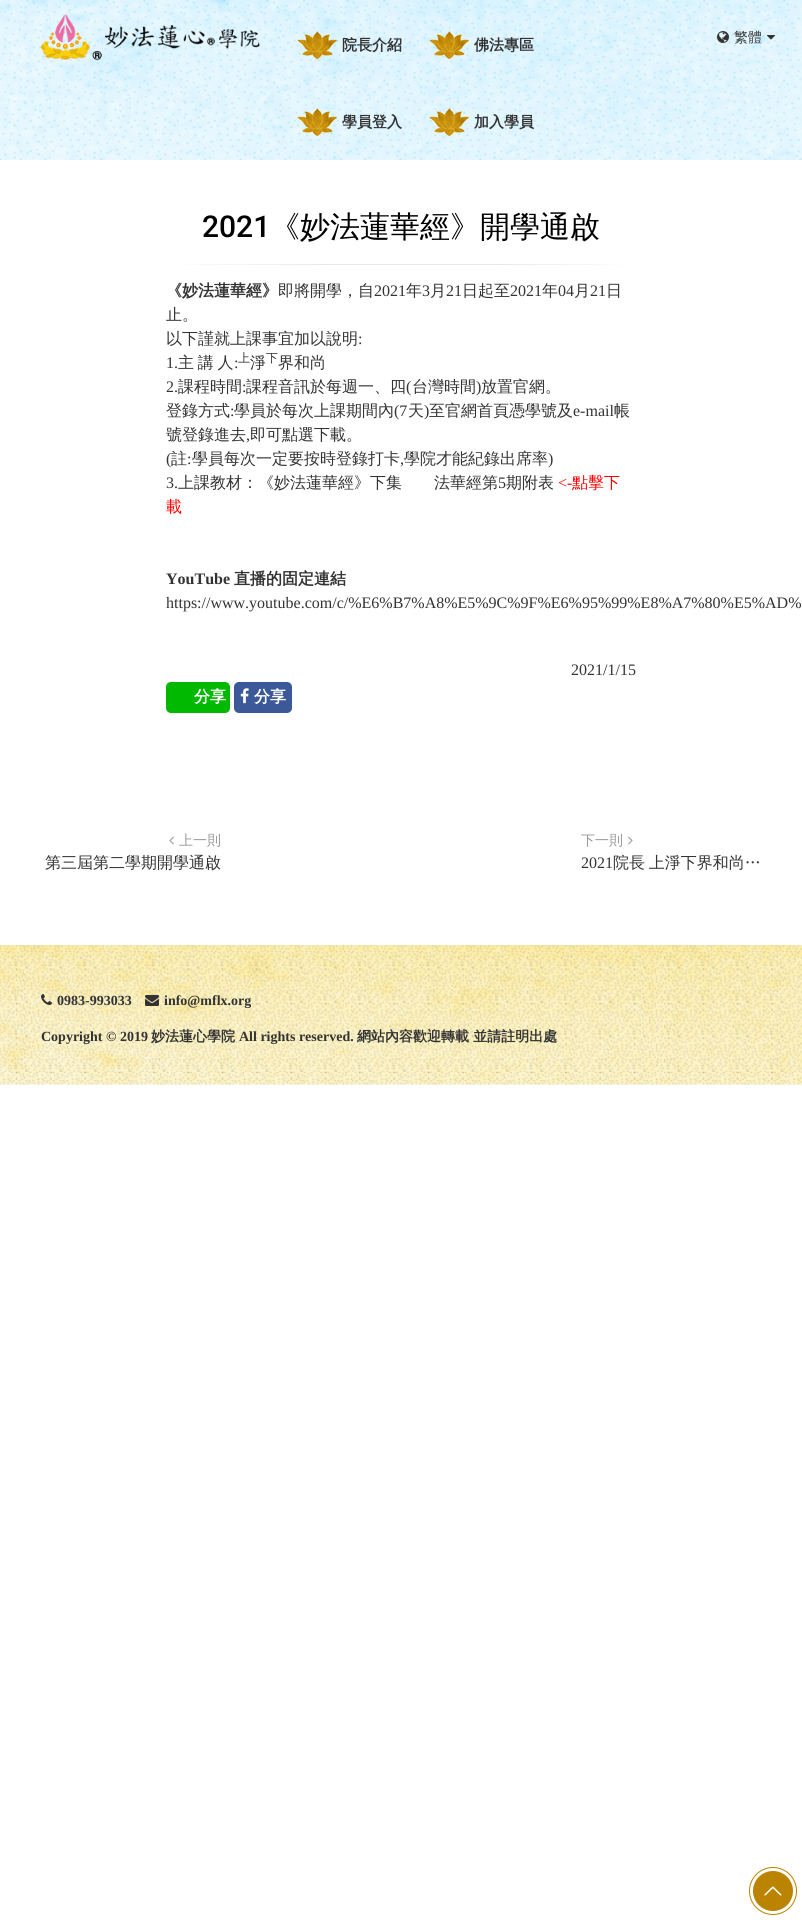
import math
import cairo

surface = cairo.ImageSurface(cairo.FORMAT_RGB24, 802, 1920)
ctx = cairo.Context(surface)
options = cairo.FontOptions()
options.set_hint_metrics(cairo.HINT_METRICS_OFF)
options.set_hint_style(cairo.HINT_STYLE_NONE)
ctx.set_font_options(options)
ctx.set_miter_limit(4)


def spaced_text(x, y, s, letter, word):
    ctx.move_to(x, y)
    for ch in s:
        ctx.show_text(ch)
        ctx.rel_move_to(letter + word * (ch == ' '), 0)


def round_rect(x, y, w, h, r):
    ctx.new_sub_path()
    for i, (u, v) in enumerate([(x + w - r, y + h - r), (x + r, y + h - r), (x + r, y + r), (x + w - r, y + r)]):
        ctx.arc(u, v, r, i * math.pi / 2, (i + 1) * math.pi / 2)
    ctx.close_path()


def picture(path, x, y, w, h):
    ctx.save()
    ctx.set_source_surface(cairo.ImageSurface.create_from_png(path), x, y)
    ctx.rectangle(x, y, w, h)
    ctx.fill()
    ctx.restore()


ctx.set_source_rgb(1, 1, 1)
ctx.paint()
picture("img1.png", 0, 0, 802, 160)
picture("img2.png", 41, 14, 219, 47)
picture("img3.png", 297, 31, 40, 28)
ctx.select_font_face("WenQuanYi Zen Hei", cairo.FONT_SLANT_NORMAL, cairo.FONT_WEIGHT_BOLD)
ctx.set_font_size(15)
ctx.set_source_rgb(0.2, 0.2, 0.2)
ctx.move_to(342, 50)
ctx.show_text("院長介紹")
picture("img4.png", 429, 31, 40, 28)
ctx.move_to(474, 50)
ctx.show_text("佛法專區")
picture("img5.png", 297, 108, 40, 28)
ctx.move_to(342, 127)
ctx.show_text("學員登入")
picture("img6.png", 429, 108, 40, 28)
ctx.move_to(474, 127)
ctx.show_text("加入學員")
picture("img7.png", 717, 31, 12, 12)
ctx.select_font_face("WenQuanYi Zen Hei Medium")
ctx.set_font_size(14)
ctx.move_to(734, 42)
ctx.show_text("繁體")
picture("img8.png", 767, 35, 8, 5)
ctx.select_font_face("Roboto Medium")
ctx.set_font_size(30)
ctx.set_source_rgb(0, 0, 0)
ctx.move_to(202, 237)
ctx.show_text("2021")
ctx.select_font_face("WenQuanYi Zen Hei Medium")
ctx.move_to(270, 237)
ctx.show_text("《妙法蓮華經》開學通啟")
gradient = cairo.LinearGradient(166, 265, 636, 265)
gradient.add_color_stop_rgba(0, 1, 1, 1, 1)
gradient.add_color_stop_rgba(0.35, 0.91, 0.91, 0.91, 1)
gradient.add_color_stop_rgba(0.7, 0.91, 0.91, 0.91, 1)
gradient.add_color_stop_rgba(1, 1, 1, 1, 1)
ctx.set_source(gradient)
ctx.rectangle(184, 264, 437, 1)
ctx.fill()
ctx.select_font_face("WenQuanYi Zen Hei", cairo.FONT_SLANT_NORMAL, cairo.FONT_WEIGHT_BOLD)
ctx.set_font_size(16)
ctx.set_source_rgb(0.2, 0.2, 0.2)
ctx.move_to(166, 296)
ctx.show_text("《妙法蓮華經》")
ctx.select_font_face("WenQuanYi Zen Hei Medium")
ctx.move_to(278, 296)
ctx.show_text("即將開學，自")
ctx.select_font_face("Liberation Serif")
ctx.move_to(374, 296)
ctx.show_text("2021")
ctx.select_font_face("WenQuanYi Zen Hei Medium")
ctx.move_to(406, 296)
ctx.show_text("年")
ctx.select_font_face("Liberation Serif")
ctx.move_to(422, 296)
ctx.show_text("3")
ctx.select_font_face("WenQuanYi Zen Hei Medium")
ctx.move_to(430, 296)
ctx.show_text("月")
ctx.select_font_face("Liberation Serif")
ctx.move_to(446, 296)
ctx.show_text("21")
ctx.select_font_face("WenQuanYi Zen Hei Medium")
ctx.move_to(462, 296)
ctx.show_text("日起至")
ctx.select_font_face("Liberation Serif")
ctx.move_to(510, 296)
ctx.show_text("2021")
ctx.select_font_face("WenQuanYi Zen Hei Medium")
ctx.move_to(542, 296)
ctx.show_text("年")
ctx.select_font_face("Liberation Serif")
ctx.move_to(558, 296)
ctx.show_text("04")
ctx.select_font_face("WenQuanYi Zen Hei Medium")
ctx.move_to(574, 296)
ctx.show_text("月")
ctx.select_font_face("Liberation Serif")
ctx.move_to(590, 296)
ctx.show_text("21")
ctx.select_font_face("WenQuanYi Zen Hei Medium")
ctx.move_to(606, 296)
ctx.show_text("日")
ctx.move_to(166, 320)
ctx.show_text("止。")
ctx.move_to(166, 344)
ctx.show_text("以下謹就上課事宜加以說明")
ctx.select_font_face("Liberation Serif")
ctx.move_to(358, 344)
ctx.show_text(":")
ctx.move_to(166, 368)
ctx.show_text("1.")
ctx.select_font_face("WenQuanYi Zen Hei Medium")
spaced_text(178, 368, "主 講 人", 0, -1)
ctx.select_font_face("Liberation Serif")
ctx.move_to(234, 368)
ctx.show_text(":")
ctx.select_font_face("WenQuanYi Zen Hei Medium")
ctx.set_font_size(12)
ctx.move_to(238, 362)
ctx.show_text("上")
ctx.set_font_size(16)
ctx.move_to(250, 368)
ctx.show_text("淨")
ctx.set_font_size(12)
ctx.move_to(266, 362)
ctx.show_text("下")
ctx.set_font_size(16)
ctx.move_to(278, 368)
ctx.show_text("界和尚")
ctx.select_font_face("Liberation Serif")
ctx.move_to(166, 392)
ctx.show_text("2.")
ctx.select_font_face("WenQuanYi Zen Hei Medium")
ctx.move_to(178, 392)
ctx.show_text("課程時間")
ctx.select_font_face("Liberation Serif")
ctx.move_to(242, 392)
ctx.show_text(":")
ctx.select_font_face("WenQuanYi Zen Hei Medium")
ctx.move_to(246, 392)
ctx.show_text("課程音訊於每週一、四")
ctx.select_font_face("Liberation Serif")
ctx.move_to(406, 392)
ctx.show_text("(")
ctx.select_font_face("WenQuanYi Zen Hei Medium")
ctx.move_to(412, 392)
ctx.show_text("台灣時間")
ctx.select_font_face("Liberation Serif")
ctx.move_to(476, 392)
ctx.show_text(")")
ctx.select_font_face("WenQuanYi Zen Hei Medium")
ctx.move_to(481, 392)
ctx.show_text("放置官網。")
ctx.move_to(166, 416)
ctx.show_text("登錄方式")
ctx.select_font_face("Liberation Serif")
ctx.move_to(230, 416)
ctx.show_text(":")
ctx.select_font_face("WenQuanYi Zen Hei Medium")
ctx.move_to(234, 416)
ctx.show_text("學員於每次上課期間內")
ctx.select_font_face("Liberation Serif")
ctx.move_to(394, 416)
ctx.show_text("(7")
ctx.select_font_face("WenQuanYi Zen Hei Medium")
ctx.move_to(408, 416)
ctx.show_text("天")
ctx.select_font_face("Liberation Serif")
ctx.move_to(424, 416)
ctx.show_text(")")
ctx.select_font_face("WenQuanYi Zen Hei Medium")
ctx.move_to(429, 416)
ctx.show_text("至官網首頁憑學號及")
ctx.select_font_face("Liberation Serif")
ctx.move_to(573, 416)
ctx.show_text("e-mail")
ctx.select_font_face("WenQuanYi Zen Hei Medium")
ctx.move_to(614, 416)
ctx.show_text("帳")
ctx.move_to(166, 440)
ctx.show_text("號登錄進去")
ctx.select_font_face("Liberation Serif")
ctx.move_to(246, 440)
ctx.show_text(",")
ctx.select_font_face("WenQuanYi Zen Hei Medium")
ctx.move_to(250, 440)
ctx.show_text("即可點選下載。")
ctx.select_font_face("Liberation Serif")
ctx.move_to(166, 464)
ctx.show_text("(")
ctx.select_font_face("WenQuanYi Zen Hei Medium")
ctx.move_to(171, 464)
ctx.show_text("註")
ctx.select_font_face("Liberation Serif")
ctx.move_to(187, 464)
ctx.show_text(":")
ctx.select_font_face("WenQuanYi Zen Hei Medium")
ctx.move_to(192, 464)
ctx.show_text("學員每次一定要按時登錄打卡")
ctx.select_font_face("Liberation Serif")
ctx.move_to(400, 464)
ctx.show_text(",")
ctx.select_font_face("WenQuanYi Zen Hei Medium")
ctx.move_to(404, 464)
ctx.show_text("學院才能紀錄出席率")
ctx.select_font_face("Liberation Serif")
ctx.move_to(548, 464)
ctx.show_text(")")
ctx.move_to(166, 488)
ctx.show_text("3.")
ctx.select_font_face("WenQuanYi Zen Hei Medium")
ctx.move_to(178, 488)
ctx.show_text("上課教材：《妙法蓮華經》下集")
ctx.move_to(434, 488)
ctx.show_text("法華經第")
ctx.select_font_face("Liberation Serif")
ctx.move_to(498, 488)
ctx.show_text("5")
ctx.select_font_face("WenQuanYi Zen Hei Medium")
ctx.move_to(506, 488)
ctx.show_text("期附表")
ctx.select_font_face("Liberation Serif")
ctx.set_source_rgb(1, 0, 0)
ctx.move_to(558, 488)
ctx.show_text("<-")
ctx.select_font_face("WenQuanYi Zen Hei Medium")
ctx.move_to(572, 488)
ctx.show_text("點擊下")
ctx.move_to(166, 512)
ctx.show_text("載")
ctx.select_font_face("Liberation Serif", cairo.FONT_SLANT_NORMAL, cairo.FONT_WEIGHT_BOLD)
ctx.set_source_rgb(0.2, 0.2, 0.2)
ctx.move_to(166, 584)
ctx.show_text("YouTube")
ctx.select_font_face("WenQuanYi Zen Hei", cairo.FONT_SLANT_NORMAL, cairo.FONT_WEIGHT_BOLD)
ctx.move_to(234, 584)
ctx.show_text("直播的固定連結")
ctx.select_font_face("Liberation Serif")
ctx.move_to(166, 608)
ctx.show_text("https://www.youtube.com/c/%E6%B7%A8%E5%9C%9F%E6%95%99%E8%A7%80%E5%AD%")
ctx.move_to(571, 675)
ctx.show_text("2021/1/15")
ctx.set_source_rgb(0, 0.725, 0)
round_rect(166, 682, 64, 31, 5)
ctx.fill()
ctx.select_font_face("WenQuanYi Zen Hei", cairo.FONT_SLANT_NORMAL, cairo.FONT_WEIGHT_BOLD)
ctx.set_source_rgb(1, 1, 1)
ctx.move_to(194, 702)
ctx.show_text("分享")
ctx.set_source_rgb(0.231, 0.349, 0.596)
round_rect(234, 682, 58, 31, 5)
ctx.fill()
picture("img9.png", 240, 688, 9, 16)
ctx.set_source_rgb(1, 1, 1)
ctx.move_to(254, 702)
ctx.show_text("分享")
picture("img10.png", 169, 836, 5, 9)
ctx.select_font_face("WenQuanYi Zen Hei Medium")
ctx.set_font_size(14)
ctx.set_source_rgb(0.6, 0.6, 0.6)
ctx.move_to(179, 845)
ctx.show_text("上一則")
ctx.set_font_size(16)
ctx.set_source_rgb(0.2, 0.2, 0.2)
ctx.move_to(45, 868)
ctx.show_text("第三屆第二學期開學通啟")
ctx.set_font_size(14)
ctx.set_source_rgb(0.6, 0.6, 0.6)
ctx.move_to(581, 845)
ctx.show_text("下一則")
picture("img11.png", 628, 836, 5, 9)
ctx.select_font_face("Liberation Serif")
ctx.set_font_size(16)
ctx.set_source_rgb(0.2, 0.2, 0.2)
ctx.move_to(581, 868)
ctx.show_text("2021")
ctx.select_font_face("WenQuanYi Zen Hei Medium")
spaced_text(613, 868, "院長 上淨下界和尚…", 0, -1)
picture("img12.png", 0, 945, 802, 142)
picture("img13.png", 41, 994, 11, 11)
ctx.select_font_face("Liberation Serif", cairo.FONT_SLANT_NORMAL, cairo.FONT_WEIGHT_BOLD)
ctx.set_font_size(14)
ctx.move_to(57, 1005)
ctx.show_text("0983-993033")
picture("img14.png", 145, 995, 14, 11)
ctx.move_to(164, 1005)
ctx.show_text("info@mflx.org")
ctx.move_to(41, 1041)
ctx.show_text("Copyright © 2019")
ctx.select_font_face("WenQuanYi Zen Hei", cairo.FONT_SLANT_NORMAL, cairo.FONT_WEIGHT_BOLD)
ctx.move_to(151, 1041)
ctx.show_text("妙法蓮心學院")
ctx.select_font_face("Liberation Serif", cairo.FONT_SLANT_NORMAL, cairo.FONT_WEIGHT_BOLD)
ctx.move_to(239, 1041)
ctx.show_text("All rights reserved.")
ctx.select_font_face("WenQuanYi Zen Hei", cairo.FONT_SLANT_NORMAL, cairo.FONT_WEIGHT_BOLD)
ctx.move_to(357, 1041)
ctx.show_text("網站內容歡迎轉載 並請註明出處")
ctx.new_path()
ctx.arc(773, 1891, 23.5, 0, 2 * math.pi)
ctx.set_source_rgb(0.729, 0.514, 0)
ctx.set_line_width(1)
ctx.stroke()
ctx.arc(773, 1891, 20, 0, 2 * math.pi)
ctx.fill()
picture("img15.png", 764, 1886, 18, 10)
surface.write_to_png("page.png")
